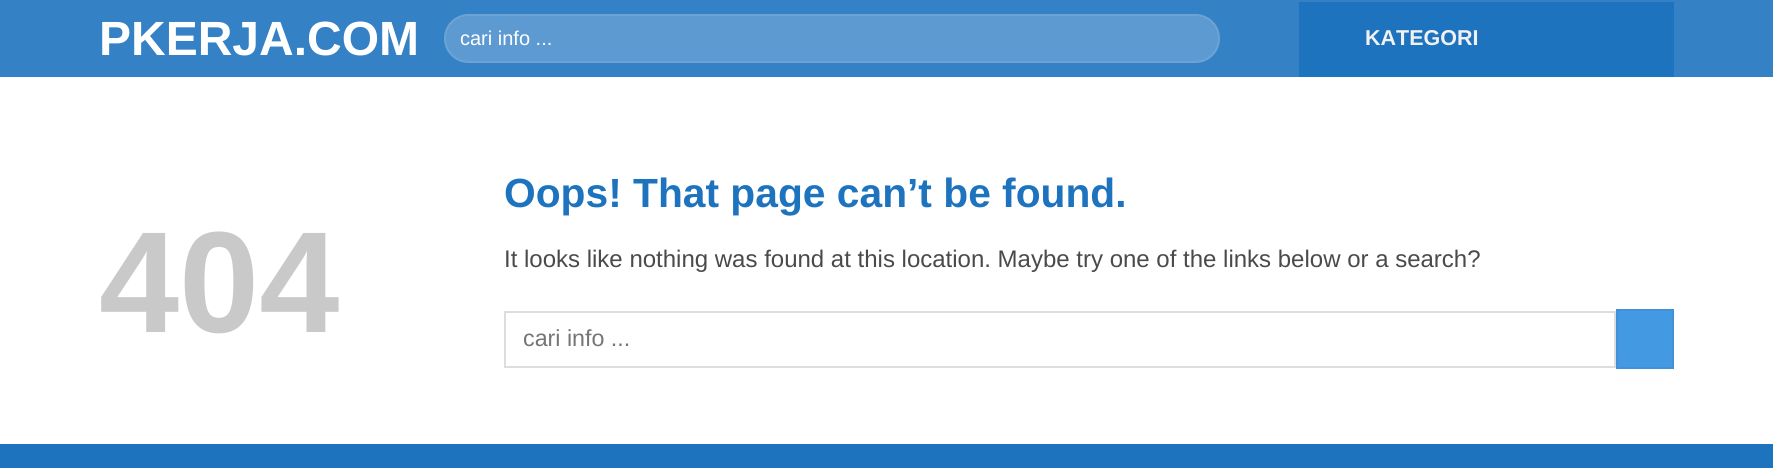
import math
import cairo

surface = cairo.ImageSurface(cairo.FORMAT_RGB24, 1773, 468)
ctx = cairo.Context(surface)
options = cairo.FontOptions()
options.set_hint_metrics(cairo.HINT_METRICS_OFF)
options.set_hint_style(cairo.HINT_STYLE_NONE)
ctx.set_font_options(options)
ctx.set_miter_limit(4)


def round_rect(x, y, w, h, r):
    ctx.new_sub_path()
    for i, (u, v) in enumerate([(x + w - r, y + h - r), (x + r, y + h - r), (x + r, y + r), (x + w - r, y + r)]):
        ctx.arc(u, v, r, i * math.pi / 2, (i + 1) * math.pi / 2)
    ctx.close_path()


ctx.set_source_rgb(1, 1, 1)
ctx.paint()
ctx.set_source_rgb(0.208, 0.506, 0.773)
ctx.rectangle(0, 0, 1773, 77)
ctx.fill()
ctx.select_font_face("Liberation Sans", cairo.FONT_SLANT_NORMAL, cairo.FONT_WEIGHT_BOLD)
ctx.set_font_size(48)
ctx.set_source_rgb(1, 1, 1)
ctx.move_to(99, 55)
ctx.show_text("PKERJA.COM")
ctx.set_source_rgb(0.365, 0.604, 0.82)
round_rect(444, 14, 776, 49, 24.5)
ctx.fill()
round_rect(445, 15, 774, 47, 23.5)
ctx.set_source_rgba(1, 1, 1, 0.09)
ctx.stroke()
ctx.select_font_face("Liberation Sans")
ctx.set_font_size(20)
ctx.set_source_rgb(1, 1, 1)
ctx.move_to(460, 45)
ctx.show_text("cari info ...")
ctx.set_source_rgb(0.118, 0.451, 0.745)
ctx.rectangle(1299, 2, 375, 75)
ctx.fill()
ctx.select_font_face("Liberation Sans", cairo.FONT_SLANT_NORMAL, cairo.FONT_WEIGHT_BOLD)
ctx.set_font_size(21.5)
ctx.set_source_rgb(0.945, 0.945, 0.945)
ctx.move_to(1365, 45)
ctx.show_text("KATEGORI")
ctx.set_font_size(144)
ctx.set_source_rgb(0.788, 0.788, 0.788)
ctx.move_to(99, 332)
ctx.show_text("404")
ctx.set_font_size(40.75)
ctx.set_source_rgb(0.118, 0.451, 0.745)
ctx.move_to(504, 207)
ctx.show_text("Oops! That page can’t be found.")
ctx.select_font_face("Liberation Sans")
ctx.set_font_size(24)
ctx.set_source_rgb(0.29, 0.29, 0.29)
ctx.move_to(504, 267)
ctx.show_text("It looks like nothing was found at this location. Maybe try one of the links below or a search?")
ctx.rectangle(505, 312, 1110, 55)
ctx.set_source_rgb(0.867, 0.867, 0.867)
ctx.stroke()
ctx.set_font_size(23.25)
ctx.set_source_rgb(0.459, 0.459, 0.459)
ctx.move_to(523, 346)
ctx.show_text("cari info ...")
ctx.set_source_rgb(0.267, 0.6, 0.89)
ctx.rectangle(1617, 310, 56, 58)
ctx.fill_preserve()
ctx.set_source_rgb(0.255, 0.569, 0.847)
ctx.stroke()
ctx.set_source_rgb(0.118, 0.451, 0.745)
ctx.rectangle(0, 444, 1773, 24)
ctx.fill()
surface.write_to_png("page.png")
